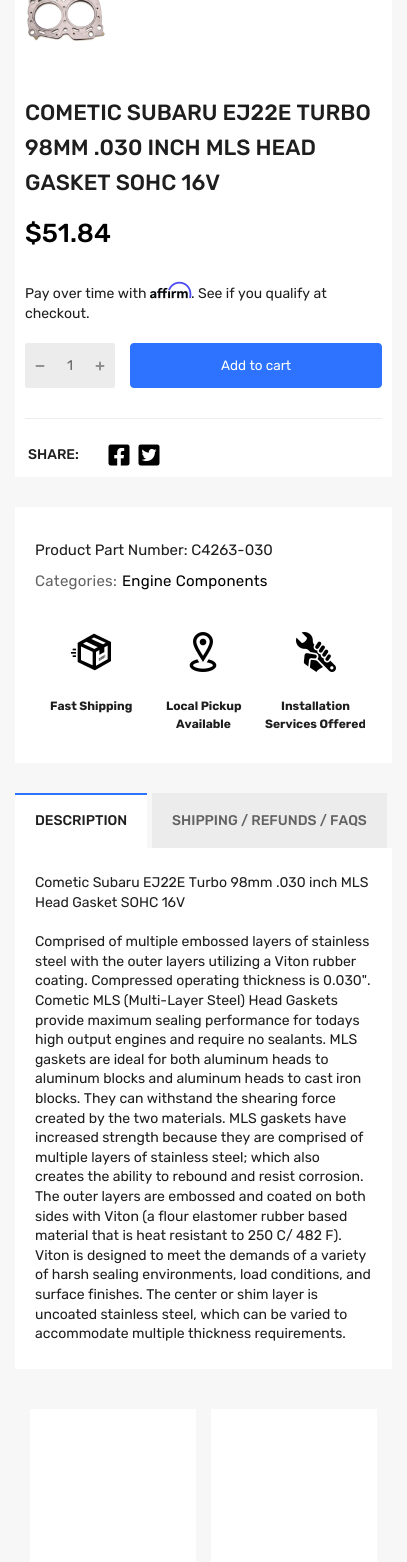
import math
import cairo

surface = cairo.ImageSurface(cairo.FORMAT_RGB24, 407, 1562)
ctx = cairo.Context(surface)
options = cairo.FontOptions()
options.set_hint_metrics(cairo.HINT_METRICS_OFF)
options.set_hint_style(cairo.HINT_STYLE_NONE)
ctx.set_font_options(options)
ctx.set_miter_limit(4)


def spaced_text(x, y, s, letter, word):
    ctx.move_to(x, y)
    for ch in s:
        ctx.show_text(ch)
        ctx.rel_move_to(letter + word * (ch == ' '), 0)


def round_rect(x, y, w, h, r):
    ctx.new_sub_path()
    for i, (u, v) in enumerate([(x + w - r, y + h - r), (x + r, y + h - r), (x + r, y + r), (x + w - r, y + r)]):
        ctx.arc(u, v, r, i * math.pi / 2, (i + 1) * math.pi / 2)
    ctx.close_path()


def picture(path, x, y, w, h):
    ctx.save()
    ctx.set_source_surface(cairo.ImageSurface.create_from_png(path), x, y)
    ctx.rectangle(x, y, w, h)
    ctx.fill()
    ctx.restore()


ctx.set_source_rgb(0.965, 0.965, 0.965)
ctx.paint()
ctx.set_source_rgb(1, 1, 1)
ctx.rectangle(15, 0, 377, 477)
ctx.fill()
picture("img1.png", 27, 0, 78, 41)
ctx.select_font_face("Rubik Medium")
ctx.set_font_size(22)
ctx.set_source_rgb(0.118, 0.118, 0.118)
ctx.move_to(25, 120)
ctx.show_text("COMETIC SUBARU EJ22E TURBO")
ctx.move_to(25, 155)
ctx.show_text("98MM .030 INCH MLS HEAD")
ctx.move_to(25, 190)
ctx.show_text("GASKET SOHC 16V")
ctx.set_font_size(26)
ctx.set_source_rgb(0, 0, 0)
ctx.move_to(25, 242)
ctx.show_text("$51.84")
ctx.select_font_face("Rubik")
ctx.set_font_size(14)
ctx.set_source_rgb(0.118, 0.118, 0.118)
ctx.move_to(25, 298)
ctx.show_text("Pay over time with")
picture("img3.png", 150, 287, 38, 12)
picture("img2.png", 168, 281, 24, 18)
ctx.move_to(191, 298)
ctx.show_text(". See if you qualify at")
ctx.move_to(25, 318)
ctx.show_text("checkout.")
ctx.set_source_rgb(0.922, 0.922, 0.922)
round_rect(25, 343, 90, 45, 2)
ctx.fill()
picture("img4.png", 35, 365, 10, 2)
ctx.set_source_rgb(0.384, 0.384, 0.384)
ctx.move_to(67, 370)
ctx.show_text("1")
picture("img5.png", 95, 361, 10, 10)
ctx.set_source_rgb(0.176, 0.451, 1)
round_rect(130, 343, 252, 45, 4)
ctx.fill()
ctx.set_font_size(13.5)
ctx.set_source_rgb(1, 1, 1)
ctx.move_to(221, 370)
ctx.show_text("Add to cart")
ctx.set_source_rgb(0.922, 0.922, 0.922)
ctx.rectangle(25, 418, 357, 1)
ctx.fill()
ctx.select_font_face("Rubik Medium")
ctx.set_font_size(14)
ctx.set_source_rgb(0.118, 0.118, 0.118)
ctx.move_to(28, 459)
ctx.show_text("SHARE:")
picture("img6.png", 108, 444, 22, 22)
picture("img7.png", 138, 444, 22, 22)
ctx.set_source_rgb(1, 1, 1)
ctx.rectangle(15, 507, 377, 256)
ctx.fill()
ctx.select_font_face("Rubik")
ctx.set_font_size(15)
ctx.set_source_rgb(0.118, 0.118, 0.118)
ctx.move_to(35, 555)
ctx.show_text("Product Part Number: C4263-030")
ctx.set_source_rgb(0.384, 0.384, 0.384)
spaced_text(35, 586, "Categories:", 0.25, 0)
ctx.set_source_rgb(0, 0, 0)
spaced_text(122, 586, "Engine Components", 0.25, 0)
picture("img8.png", 71, 633, 40, 38)
ctx.select_font_face("Rubik", cairo.FONT_SLANT_NORMAL, cairo.FONT_WEIGHT_BOLD)
ctx.set_font_size(12)
ctx.set_source_rgb(0.118, 0.118, 0.118)
ctx.move_to(50, 710)
ctx.show_text("Fast Shipping")
picture("img9.png", 189, 632, 28, 40)
ctx.move_to(166, 710)
ctx.show_text("Local Pickup")
ctx.move_to(176, 728)
ctx.show_text("Available")
picture("img10.png", 296, 632, 40, 40)
ctx.move_to(281, 710)
ctx.show_text("Installation")
ctx.move_to(265, 728)
ctx.show_text("Services Offered")
ctx.set_source_rgb(1, 1, 1)
ctx.rectangle(15, 795, 132, 53)
ctx.fill()
ctx.set_source_rgb(0.176, 0.451, 1)
ctx.rectangle(15, 793, 132, 2)
ctx.fill()
ctx.select_font_face("Rubik Medium")
ctx.set_font_size(14)
ctx.set_source_rgb(0.118, 0.118, 0.118)
ctx.move_to(35, 825)
ctx.show_text("DESCRIPTION")
ctx.set_source_rgb(0.922, 0.922, 0.922)
ctx.rectangle(152, 793, 235, 55)
ctx.fill()
ctx.set_source_rgb(0.384, 0.384, 0.384)
ctx.move_to(172, 825)
ctx.show_text("SHIPPING / REFUNDS / FAQS")
ctx.set_source_rgb(1, 1, 1)
ctx.rectangle(15, 848, 377, 521)
ctx.fill()
ctx.select_font_face("Rubik")
ctx.set_source_rgb(0.118, 0.118, 0.118)
ctx.move_to(35, 887)
ctx.show_text("Cometic Subaru EJ22E Turbo 98mm .030 inch MLS")
ctx.move_to(35, 907)
ctx.show_text("Head Gasket SOHC 16V")
ctx.move_to(35, 946)
ctx.show_text("Comprised of multiple embossed layers of stainless")
ctx.move_to(35, 966)
ctx.show_text("steel with the outer layers utilizing a Viton rubber")
ctx.move_to(35, 985)
ctx.show_text("coating. Compressed operating thickness is 0.030\".")
ctx.move_to(35, 1005)
ctx.show_text("Cometic MLS (Multi-Layer Steel) Head Gaskets")
ctx.move_to(35, 1025)
ctx.show_text("provide maximum sealing performance for todays")
ctx.move_to(35, 1044)
ctx.show_text("high output engines and require no sealants. MLS")
ctx.move_to(35, 1064)
ctx.show_text("gaskets are ideal for both aluminum heads to")
ctx.move_to(35, 1083)
ctx.show_text("aluminum blocks and aluminum heads to cast iron")
ctx.move_to(35, 1103)
ctx.show_text("blocks. They can withstand the shearing force")
ctx.move_to(35, 1123)
ctx.show_text("created by the two materials. MLS gaskets have")
ctx.move_to(35, 1142)
ctx.show_text("increased strength because they are comprised of")
ctx.move_to(35, 1162)
ctx.show_text("multiple layers of stainless steel; which also")
ctx.move_to(35, 1181)
ctx.show_text("creates the ability to rebound and resist corrosion.")
ctx.move_to(35, 1201)
ctx.show_text("The outer layers are embossed and coated on both")
ctx.move_to(35, 1221)
ctx.show_text("sides with Viton (a flour elastomer rubber based")
ctx.move_to(35, 1240)
ctx.show_text("material that is heat resistant to 250 C/ 482 F).")
ctx.move_to(35, 1260)
ctx.show_text("Viton is designed to meet the demands of a variety")
ctx.move_to(35, 1279)
ctx.show_text("of harsh sealing environments, load conditions, and")
ctx.move_to(35, 1299)
ctx.show_text("surface finishes. The center or shim layer is")
ctx.move_to(35, 1319)
ctx.show_text("uncoated stainless steel, which can be varied to")
ctx.move_to(35, 1338)
ctx.show_text("accommodate multiple thickness requirements.")
ctx.set_source_rgb(1, 1, 1)
ctx.rectangle(30, 1409, 166, 153)
ctx.fill()
ctx.rectangle(211, 1409, 166, 153)
ctx.fill()
surface.write_to_png("page.png")
